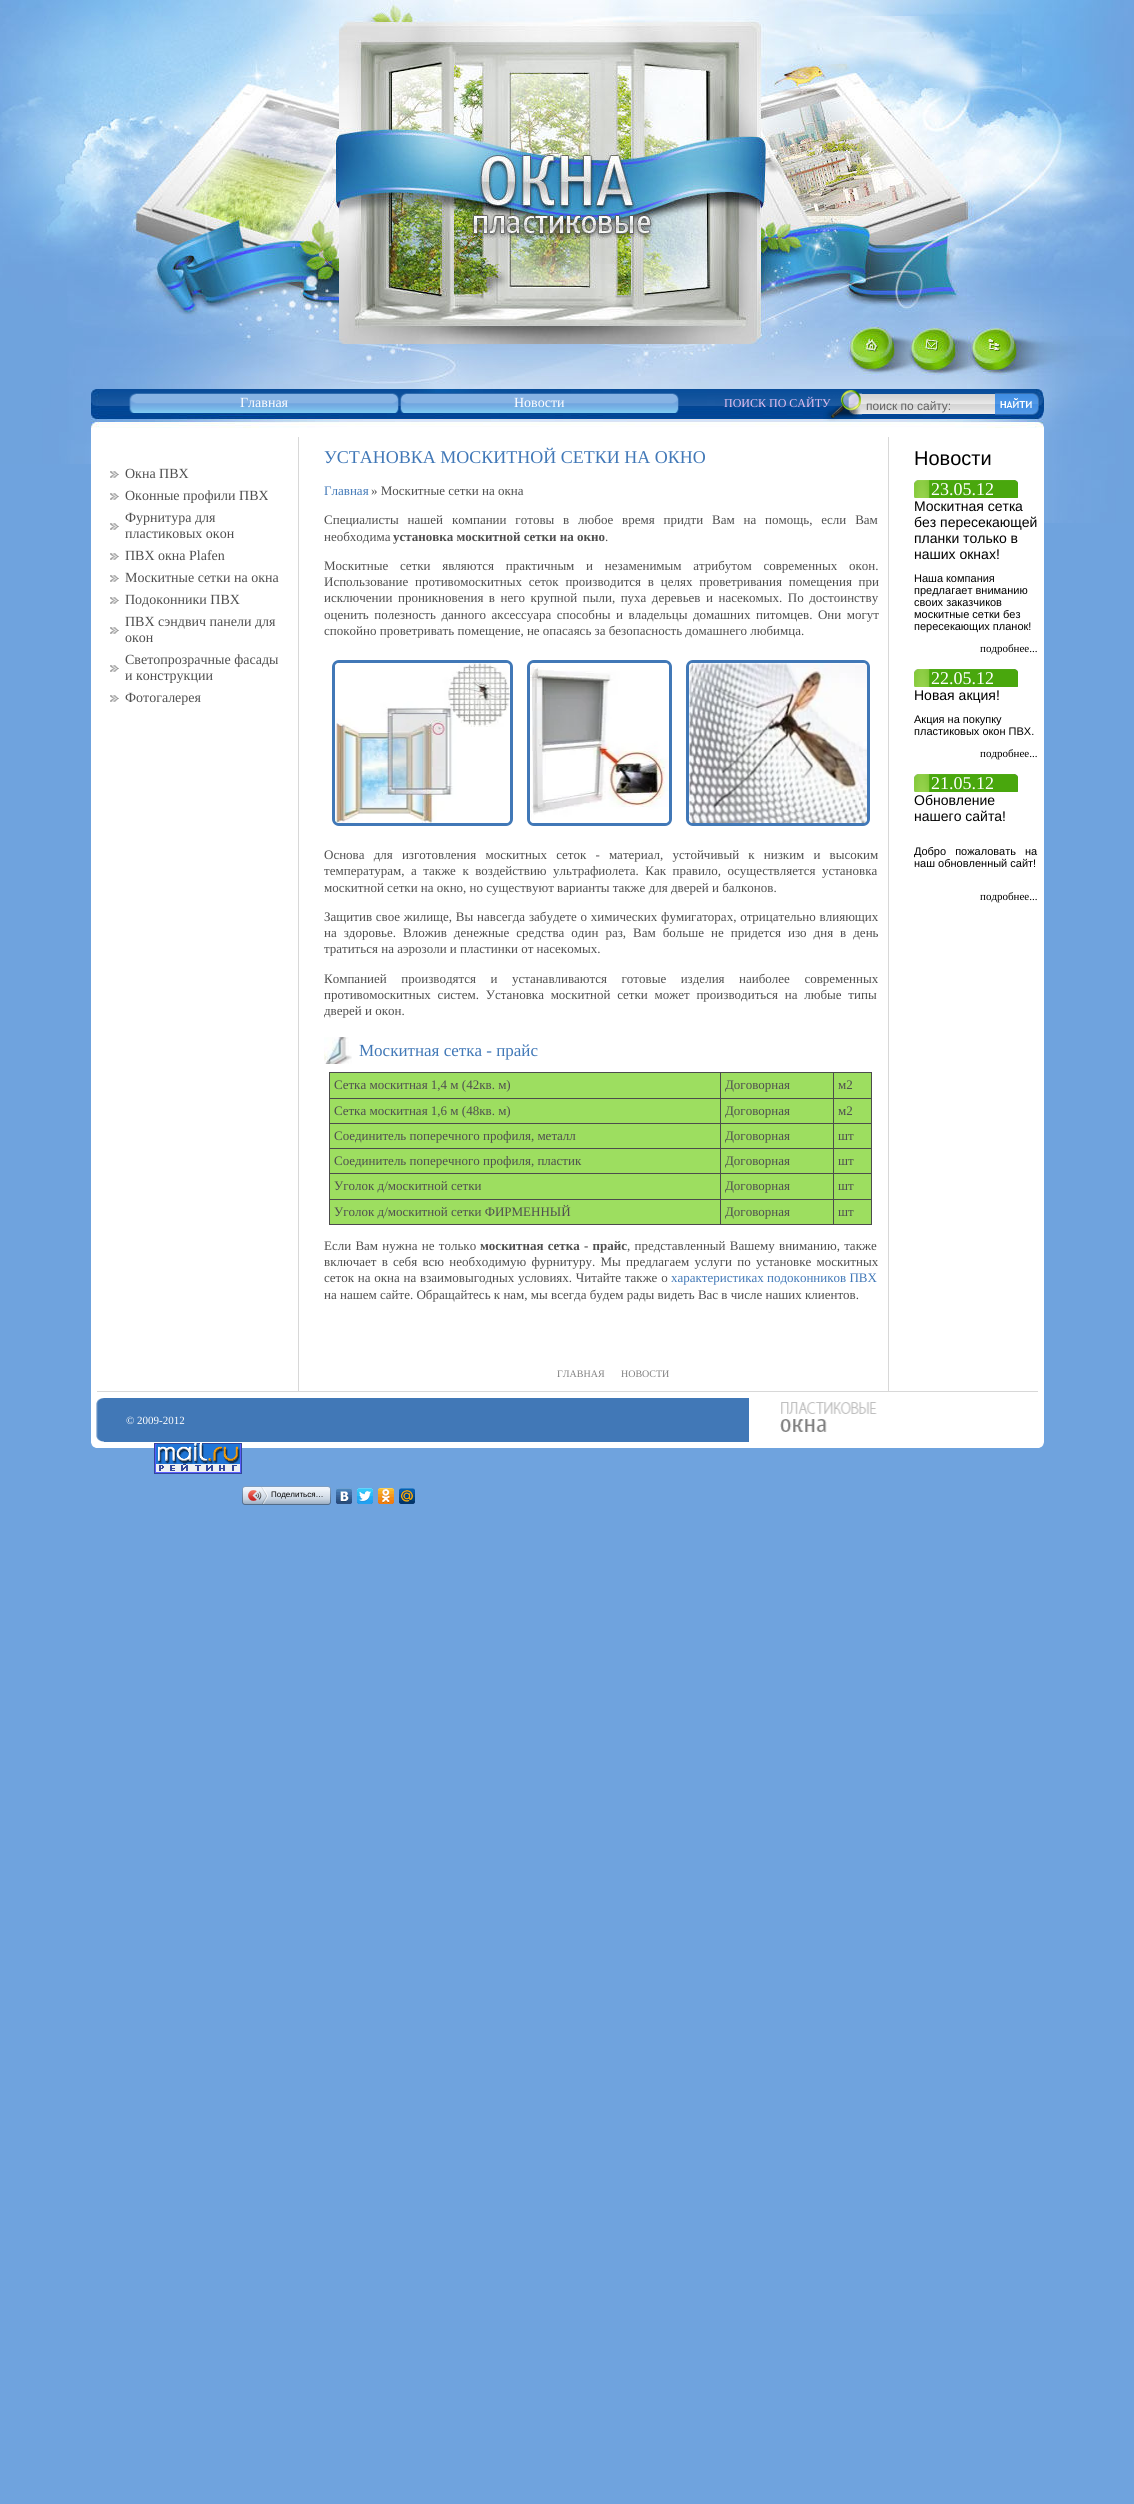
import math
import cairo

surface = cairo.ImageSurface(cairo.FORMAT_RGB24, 1134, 2504)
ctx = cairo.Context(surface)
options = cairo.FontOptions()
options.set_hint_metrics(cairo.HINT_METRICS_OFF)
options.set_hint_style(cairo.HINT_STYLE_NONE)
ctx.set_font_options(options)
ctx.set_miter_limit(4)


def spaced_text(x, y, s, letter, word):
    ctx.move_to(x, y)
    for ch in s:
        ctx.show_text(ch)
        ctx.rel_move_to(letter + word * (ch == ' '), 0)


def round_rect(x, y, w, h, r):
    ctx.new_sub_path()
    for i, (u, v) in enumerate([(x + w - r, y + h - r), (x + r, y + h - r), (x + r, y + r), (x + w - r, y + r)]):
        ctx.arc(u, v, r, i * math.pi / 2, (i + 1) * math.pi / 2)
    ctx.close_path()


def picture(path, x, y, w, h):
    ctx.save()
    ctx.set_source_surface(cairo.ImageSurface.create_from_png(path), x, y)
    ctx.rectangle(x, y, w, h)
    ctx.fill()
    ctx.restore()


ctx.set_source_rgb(0.435, 0.639, 0.871)
ctx.paint()
picture("img1.png", 0, 0, 91, 464)
picture("img2.png", 1044, 0, 90, 523)
picture("img3.png", 91, 0, 330, 389)
picture("img4.png", 421, 0, 330, 389)
picture("img5.png", 751, 0, 293, 389)
picture("img6.png", 91, 389, 953, 39)
picture("img7.png", 136, 393, 257, 20)
picture("img8.png", 129, 393, 7, 20)
picture("img9.png", 393, 393, 6, 20)
ctx.select_font_face("Liberation Serif")
ctx.set_font_size(14)
ctx.set_source_rgb(1, 1, 1)
ctx.move_to(240, 407)
ctx.show_text("Главная")
picture("img10.png", 406, 393, 267, 20)
picture("img11.png", 400, 393, 6, 20)
picture("img9.png", 673, 393, 6, 20)
ctx.move_to(514, 407)
ctx.show_text("Новости")
picture("img12.png", 823, 390, 39, 32)
ctx.set_font_size(12)
ctx.set_source_rgb(0.898, 0.749, 0.945)
ctx.move_to(724, 407)
ctx.show_text("ПОИСК ПО САЙТУ")
picture("img13.png", 862, 394, 133, 20)
ctx.select_font_face("Liberation Sans")
ctx.set_source_rgb(0.38, 0.38, 0.38)
ctx.move_to(866, 410)
ctx.show_text("поиск по сайту:")
picture("img14.png", 995, 393, 44, 22)
ctx.set_source_rgb(1, 1, 1)
ctx.rectangle(91, 428, 953, 1014)
ctx.fill()
ctx.set_source_rgb(0.847, 0.847, 0.847)
ctx.rectangle(97, 1391, 941, 1)
ctx.fill()
picture("img15.png", 110, 471, 9, 7)
ctx.select_font_face("Liberation Serif")
ctx.set_font_size(14)
ctx.set_source_rgb(0.31, 0.31, 0.31)
ctx.move_to(125, 478)
ctx.show_text("Окна ПВХ")
picture("img15.png", 110, 493, 9, 7)
ctx.move_to(125, 500)
ctx.show_text("Оконные профили ПВХ")
picture("img15.png", 110, 523, 9, 7)
ctx.move_to(125, 522)
ctx.show_text("Фурнитура для")
ctx.move_to(125, 538)
ctx.show_text("пластиковых окон")
picture("img15.png", 110, 553, 9, 7)
ctx.move_to(125, 560)
ctx.show_text("ПВХ окна Plafen")
picture("img15.png", 110, 575, 9, 7)
ctx.move_to(125, 582)
ctx.show_text("Москитные сетки на окна")
picture("img15.png", 110, 597, 9, 7)
ctx.move_to(125, 604)
ctx.show_text("Подоконники ПВХ")
picture("img15.png", 110, 627, 9, 7)
ctx.move_to(125, 626)
ctx.show_text("ПВХ сэндвич панели для")
ctx.move_to(125, 642)
ctx.show_text("окон")
picture("img15.png", 110, 665, 9, 7)
ctx.move_to(125, 664)
ctx.show_text("Светопрозрачные фасады")
ctx.move_to(125, 680)
ctx.show_text("и конструкции")
picture("img15.png", 110, 695, 9, 7)
ctx.move_to(125, 702)
ctx.show_text("Фотогалерея")
ctx.set_source_rgb(0.847, 0.847, 0.847)
ctx.rectangle(888, 437, 1, 954)
ctx.fill()
ctx.rectangle(298, 437, 1, 954)
ctx.fill()
ctx.set_font_size(18)
ctx.set_source_rgb(0.255, 0.471, 0.718)
ctx.move_to(324, 463)
ctx.show_text("УСТАНОВКА МОСКИТНОЙ СЕТКИ НА ОКНО")
ctx.set_font_size(13)
ctx.move_to(324, 495)
ctx.show_text("Главная")
ctx.set_source_rgb(0.31, 0.31, 0.31)
ctx.move_to(371, 495)
ctx.show_text("» Москитные сетки на окна")
spaced_text(324, 524, "Специалисты нашей компании готовы в любое время придти Вам на помощь, если Вам", 0, 5.6)
ctx.move_to(324, 541)
ctx.show_text("необходима")
ctx.select_font_face("Liberation Serif", cairo.FONT_SLANT_NORMAL, cairo.FONT_WEIGHT_BOLD)
ctx.move_to(393, 541)
ctx.show_text("установка москитной сетки на окно")
ctx.select_font_face("Liberation Serif")
ctx.move_to(605, 541)
ctx.show_text(".")
spaced_text(324, 570, "Москитные сетки являются практичным и незаменимым атрибутом современных окон.", 0, 8.5)
spaced_text(324, 586, "Использование противомоскитных сеток производится в целях проветривания помещения при", 0, 3.5)
spaced_text(324, 602, "исключении проникновения в него крупной пыли, пуха деревьев и насекомых. По достоинству", 0, 2.25)
spaced_text(324, 619, "оценить полезность данного аксессуара способны и владельцы домашних питомцев. Они могут", 0, 2.25)
ctx.move_to(324, 635)
ctx.show_text("спокойно проветривать помещение, не опасаясь за безопасность домашнего любимца.")
round_rect(333.5, 661.5, 178, 163, 5.5)
ctx.set_source_rgb(0.255, 0.471, 0.718)
ctx.set_line_width(3)
ctx.stroke()
picture("img16.png", 335, 663, 175, 160)
round_rect(528.5, 661.5, 142, 163, 5.5)
ctx.stroke()
picture("img17.png", 530, 663, 139, 160)
round_rect(687.5, 661.5, 181, 163, 5.5)
ctx.stroke()
picture("img18.png", 689, 663, 178, 160)
ctx.set_source_rgb(0.31, 0.31, 0.31)
spaced_text(324, 859, "Основа для изготовления москитных сеток - материал, устойчивый к низким и высоким", 0, 5.9)
spaced_text(324, 875, "температурам, а также к воздействию ультрафиолета. Как правило, осуществляется установка", 0, 3.25)
ctx.move_to(324, 892)
ctx.show_text("москитной сетки на окно, но существуют варианты также для дверей и балконов.")
spaced_text(324, 921, "Защитив свое жилище, Вы навсегда забудете о химических фумигаторах, отрицательно влияющих", 0, 0.5)
spaced_text(324, 937, "на здоровье. Вложив денежные средства один раз, Вам больше не придется изо дня в день", 0, 3.75)
ctx.move_to(324, 953)
ctx.show_text("тратиться на аэрозоли и пластинки от насекомых.")
spaced_text(324, 983, "Компанией производятся и устанавливаются готовые изделия наиболее современных", 0, 11.25)
spaced_text(324, 999, "противомоскитных систем. Установка москитной сетки может производиться на любые типы", 0, 3.5)
ctx.move_to(324, 1015)
ctx.show_text("дверей и окон.")
picture("img19.png", 324, 1037, 28, 27)
ctx.set_font_size(17)
ctx.set_source_rgb(0.255, 0.471, 0.718)
ctx.move_to(359, 1056)
ctx.show_text("Москитная сетка - прайс")
ctx.set_source_rgb(0.616, 0.871, 0.376)
ctx.rectangle(330, 1073, 541, 151)
ctx.fill()
ctx.set_source_rgb(0.298, 0.298, 0.298)
ctx.rectangle(833, 1072, 39, 1)
ctx.fill()
ctx.rectangle(833, 1098, 39, 1)
ctx.fill()
ctx.rectangle(833, 1123, 39, 1)
ctx.fill()
ctx.rectangle(833, 1148, 39, 1)
ctx.fill()
ctx.rectangle(833, 1173, 39, 1)
ctx.fill()
ctx.rectangle(833, 1199, 39, 1)
ctx.fill()
ctx.rectangle(871, 1199, 1, 26)
ctx.fill()
ctx.rectangle(833, 1224, 39, 1)
ctx.fill()
ctx.rectangle(833, 1199, 1, 26)
ctx.fill()
ctx.rectangle(720, 1199, 114, 1)
ctx.fill()
ctx.rectangle(833, 1173, 1, 27)
ctx.fill()
ctx.rectangle(720, 1173, 114, 1)
ctx.fill()
ctx.rectangle(833, 1148, 1, 26)
ctx.fill()
ctx.rectangle(720, 1148, 114, 1)
ctx.fill()
ctx.rectangle(833, 1123, 1, 26)
ctx.fill()
ctx.rectangle(720, 1123, 114, 1)
ctx.fill()
ctx.rectangle(833, 1098, 1, 26)
ctx.fill()
ctx.rectangle(720, 1098, 114, 1)
ctx.fill()
ctx.rectangle(833, 1072, 1, 27)
ctx.fill()
ctx.rectangle(720, 1072, 114, 1)
ctx.fill()
ctx.rectangle(720, 1224, 114, 1)
ctx.fill()
ctx.rectangle(720, 1199, 1, 26)
ctx.fill()
ctx.rectangle(329, 1199, 392, 1)
ctx.fill()
ctx.rectangle(720, 1173, 1, 27)
ctx.fill()
ctx.rectangle(329, 1173, 392, 1)
ctx.fill()
ctx.rectangle(720, 1148, 1, 26)
ctx.fill()
ctx.rectangle(329, 1148, 392, 1)
ctx.fill()
ctx.rectangle(720, 1123, 1, 26)
ctx.fill()
ctx.rectangle(329, 1123, 392, 1)
ctx.fill()
ctx.rectangle(720, 1098, 1, 26)
ctx.fill()
ctx.rectangle(329, 1098, 392, 1)
ctx.fill()
ctx.rectangle(720, 1072, 1, 27)
ctx.fill()
ctx.rectangle(329, 1072, 392, 1)
ctx.fill()
ctx.rectangle(329, 1224, 392, 1)
ctx.fill()
ctx.rectangle(329, 1199, 1, 26)
ctx.fill()
ctx.rectangle(329, 1173, 1, 27)
ctx.fill()
ctx.rectangle(329, 1148, 1, 26)
ctx.fill()
ctx.rectangle(329, 1123, 1, 26)
ctx.fill()
ctx.rectangle(329, 1098, 1, 26)
ctx.fill()
ctx.rectangle(329, 1072, 1, 27)
ctx.fill()
ctx.set_font_size(13)
ctx.set_source_rgb(0.31, 0.31, 0.31)
ctx.move_to(334, 1089)
ctx.show_text("Сетка москитная 1,4 м (42кв. м)")
ctx.move_to(725, 1089)
ctx.show_text("Договорная")
ctx.set_source_rgb(0.298, 0.298, 0.298)
ctx.rectangle(871, 1173, 1, 27)
ctx.fill()
ctx.rectangle(871, 1148, 1, 26)
ctx.fill()
ctx.rectangle(871, 1123, 1, 26)
ctx.fill()
ctx.rectangle(871, 1098, 1, 26)
ctx.fill()
ctx.rectangle(871, 1072, 1, 27)
ctx.fill()
ctx.set_source_rgb(0.31, 0.31, 0.31)
ctx.move_to(838, 1089)
ctx.show_text("м2")
ctx.move_to(334, 1115)
ctx.show_text("Сетка москитная 1,6 м (48кв. м)")
ctx.move_to(725, 1115)
ctx.show_text("Договорная")
ctx.move_to(838, 1115)
ctx.show_text("м2")
ctx.move_to(334, 1140)
ctx.show_text("Соединитель поперечного профиля, металл")
ctx.move_to(725, 1140)
ctx.show_text("Договорная")
ctx.move_to(838, 1140)
ctx.show_text("шт")
ctx.move_to(334, 1165)
ctx.show_text("Соединитель поперечного профиля, пластик")
ctx.move_to(725, 1165)
ctx.show_text("Договорная")
ctx.move_to(838, 1165)
ctx.show_text("шт")
ctx.move_to(334, 1190)
ctx.show_text("Уголок д/москитной сетки")
ctx.move_to(725, 1190)
ctx.show_text("Договорная")
ctx.move_to(838, 1190)
ctx.show_text("шт")
ctx.move_to(334, 1216)
ctx.show_text("Уголок д/москитной сетки ФИРМЕННЫЙ")
ctx.move_to(725, 1216)
ctx.show_text("Договорная")
ctx.move_to(838, 1216)
ctx.show_text("шт")
spaced_text(324, 1250, "Если Вам нужна не только", 0, 1)
ctx.select_font_face("Liberation Serif", cairo.FONT_SLANT_NORMAL, cairo.FONT_WEIGHT_BOLD)
spaced_text(480, 1250, "москитная сетка - прайс", 0, 1)
ctx.select_font_face("Liberation Serif")
spaced_text(627, 1250, ", представленный Вашему вниманию, также", 0, 1)
spaced_text(324, 1266, "включает в себя всю необходимую фурнитуру. Мы предлагаем услуги по установке москитных", 0, 2)
spaced_text(324, 1282, "сеток на окна на взаимовыгодных условиях. Читайте также о", 0, 0.5)
ctx.set_source_rgb(0.255, 0.471, 0.718)
ctx.move_to(671, 1282)
ctx.show_text("характеристиках подоконников ПВХ")
ctx.set_source_rgb(0.31, 0.31, 0.31)
ctx.move_to(324, 1299)
ctx.show_text("на нашем сайте. Обращайтесь к нам, мы всегда будем рады видеть Вас в числе наших клиентов.")
ctx.set_font_size(10)
ctx.set_source_rgb(0.502, 0.502, 0.502)
ctx.move_to(557, 1377)
ctx.show_text("ГЛАВНАЯ")
ctx.move_to(621, 1377)
ctx.show_text("НОВОСТИ")
ctx.select_font_face("Liberation Sans")
ctx.set_font_size(20)
ctx.set_source_rgb(0, 0, 0)
ctx.move_to(914, 465)
ctx.show_text("Новости")
picture("img20.png", 914, 480, 104, 18)
ctx.select_font_face("Liberation Serif")
ctx.set_font_size(18)
ctx.set_source_rgb(1, 1, 1)
ctx.move_to(931, 495)
ctx.show_text("23.05.12")
ctx.select_font_face("Liberation Sans")
ctx.set_font_size(14)
ctx.set_source_rgb(0, 0, 0)
ctx.move_to(914, 511)
ctx.show_text("Москитная сетка")
ctx.move_to(914, 527)
ctx.show_text("без пересекающей")
ctx.move_to(914, 543)
ctx.show_text("планки только в")
ctx.move_to(914, 559)
ctx.show_text("наших окнах!")
ctx.set_font_size(11)
ctx.move_to(914, 582)
ctx.show_text("Наша компания")
ctx.move_to(914, 594)
ctx.show_text("предлагает вниманию")
ctx.move_to(914, 606)
ctx.show_text("своих заказчиков")
ctx.move_to(914, 618)
ctx.show_text("москитные сетки без")
ctx.move_to(914, 630)
ctx.show_text("пересекающих планок!")
ctx.select_font_face("Liberation Serif")
ctx.move_to(980, 652)
ctx.show_text("подробнее...")
picture("img20.png", 914, 669, 104, 18)
ctx.set_font_size(18)
ctx.set_source_rgb(1, 1, 1)
ctx.move_to(931, 684)
ctx.show_text("22.05.12")
ctx.select_font_face("Liberation Sans")
ctx.set_font_size(14)
ctx.set_source_rgb(0, 0, 0)
ctx.move_to(914, 700)
ctx.show_text("Новая акция!")
ctx.set_font_size(11)
ctx.move_to(914, 723)
ctx.show_text("Акция на покупку")
ctx.move_to(914, 735)
ctx.show_text("пластиковых окон ПВХ.")
ctx.select_font_face("Liberation Serif")
ctx.move_to(980, 757)
ctx.show_text("подробнее...")
picture("img20.png", 914, 774, 104, 18)
ctx.set_font_size(18)
ctx.set_source_rgb(1, 1, 1)
ctx.move_to(931, 789)
ctx.show_text("21.05.12")
ctx.select_font_face("Liberation Sans")
ctx.set_font_size(14)
ctx.set_source_rgb(0, 0, 0)
ctx.move_to(914, 805)
ctx.show_text("Обновление")
ctx.move_to(914, 821)
ctx.show_text("нашего сайта!")
ctx.set_font_size(11)
spaced_text(914, 855, "Добро пожаловать на", 0, 6)
ctx.move_to(914, 867)
ctx.show_text("наш обновленный сайт!")
ctx.select_font_face("Liberation Serif")
ctx.move_to(980, 900)
ctx.show_text("подробнее...")
ctx.set_source_rgb(0.255, 0.471, 0.718)
ctx.rectangle(104, 1398, 645, 44)
ctx.fill()
picture("img21.png", 96, 1398, 8, 44)
ctx.set_source_rgb(1, 1, 1)
ctx.move_to(126, 1424)
ctx.show_text("© 2009-2012")
picture("img22.png", 780, 1402, 97, 30)
picture("img23.png", 91, 1442, 953, 6)
picture("img24.png", 154, 1443, 88, 31)
picture("img25.png", 245, 1486, 83, 19)
picture("img26.png", 242, 1486, 3, 19)
picture("img27.png", 248, 1487, 20, 17)
ctx.select_font_face("Liberation Sans")
ctx.set_font_size(8)
ctx.set_source_rgb(0, 0, 0)
ctx.move_to(271, 1497)
ctx.show_text("Поделиться…")
picture("img28.png", 328, 1486, 3, 19)
picture("img29.png", 336, 1488, 16, 16)
picture("img30.png", 357, 1488, 16, 16)
picture("img31.png", 378, 1488, 16, 16)
picture("img32.png", 399, 1488, 16, 16)
surface.write_to_png("page.png")
